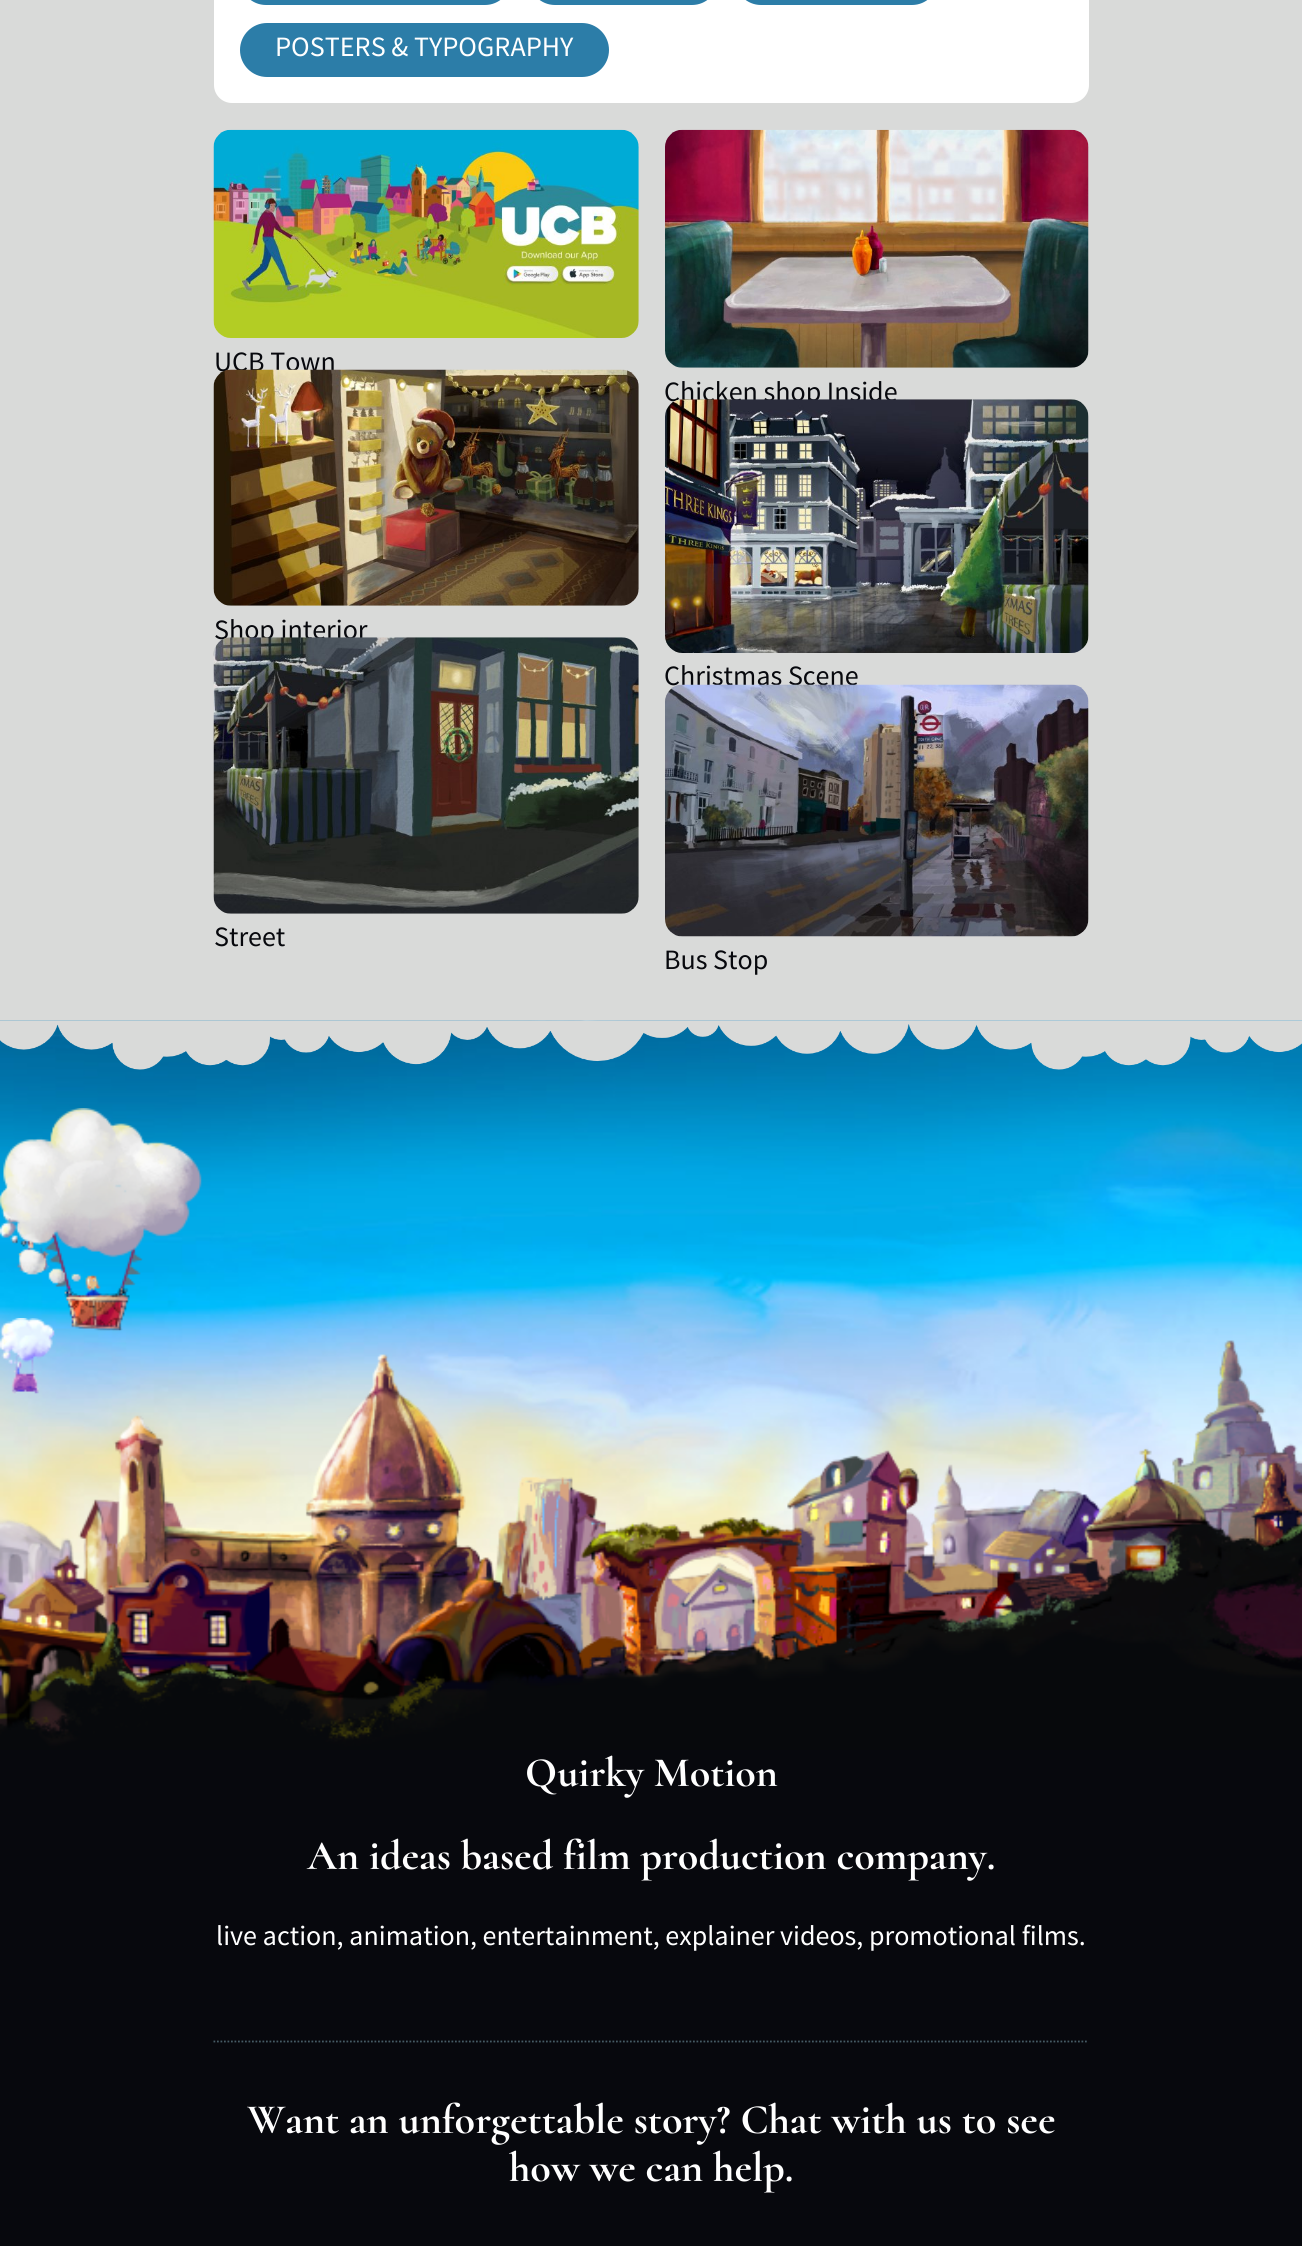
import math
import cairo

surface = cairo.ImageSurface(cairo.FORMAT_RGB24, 1302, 2246)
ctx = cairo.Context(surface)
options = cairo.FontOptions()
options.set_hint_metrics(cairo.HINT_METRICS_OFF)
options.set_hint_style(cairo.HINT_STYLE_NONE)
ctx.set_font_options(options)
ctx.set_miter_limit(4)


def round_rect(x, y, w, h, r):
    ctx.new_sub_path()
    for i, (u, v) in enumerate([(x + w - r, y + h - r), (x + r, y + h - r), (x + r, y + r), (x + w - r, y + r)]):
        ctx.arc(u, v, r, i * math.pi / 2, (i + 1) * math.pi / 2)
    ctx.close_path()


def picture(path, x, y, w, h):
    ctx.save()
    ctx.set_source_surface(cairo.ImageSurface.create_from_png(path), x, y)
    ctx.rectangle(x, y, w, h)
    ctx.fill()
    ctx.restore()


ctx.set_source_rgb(1, 1, 1)
ctx.paint()
ctx.set_source_rgb(0.851, 0.855, 0.851)
ctx.rectangle(0, 0, 1302, 1020)
ctx.fill()
ctx.set_source_rgb(1, 1, 1)
round_rect(214, -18, 875, 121, 18)
ctx.fill()
ctx.set_source_rgb(0.173, 0.49, 0.659)
round_rect(240, -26, 271, 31, 26)
ctx.fill()
round_rect(529, -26, 189, 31, 26)
ctx.fill()
round_rect(735, -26, 203, 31, 26)
ctx.fill()
round_rect(240, 23, 369, 54, 27)
ctx.fill()
ctx.select_font_face("Source Sans Pro")
ctx.set_font_size(28)
ctx.set_source_rgb(1, 1, 1)
ctx.move_to(275, 56)
ctx.show_text("POSTERS & TYPOGRAPHY")
picture("img1.png", 213, 129, 426, 209)
ctx.set_source_rgb(0.031, 0.035, 0.051)
ctx.move_to(214, 371)
ctx.show_text("UCB Town")
picture("img2.png", 665, 129, 424, 239)
ctx.move_to(664, 401)
ctx.show_text("Chicken shop Inside")
picture("img3.png", 213, 369, 426, 237)
ctx.move_to(214, 639)
ctx.show_text("Shop interior")
picture("img4.png", 665, 399, 424, 254)
ctx.move_to(664, 685)
ctx.show_text("Christmas Scene")
picture("img5.png", 213, 637, 426, 277)
ctx.move_to(214, 946)
ctx.show_text("Street")
picture("img6.png", 665, 684, 424, 253)
ctx.move_to(664, 969)
ctx.show_text("Bus Stop")
picture("img7.png", 0, 1020, 1302, 586)
picture("img8.png", 0, 1020, 1302, 50)
picture("img10.png", 0, 1184, 50, 88)
picture("img11.png", 0, 1318, 55, 76)
picture("img9.png", 0, 1108, 202, 223)
picture("img12.png", 0, 1340, 1302, 410)
ctx.rectangle(0, 1750, 1302, 496)
ctx.fill()
ctx.new_path()
ctx.move_to(213.5, 2041.5)
ctx.line_to(1088.5, 2041.5)
ctx.set_source_rgb(0.275, 0.357, 0.396)
ctx.set_line_width(1.8)
ctx.set_dash([1.75, 1.75])
ctx.stroke()
ctx.select_font_face("Cormorant", cairo.FONT_SLANT_NORMAL, cairo.FONT_WEIGHT_BOLD)
ctx.set_font_size(42)
ctx.set_source_rgb(1, 1, 1)
ctx.move_to(525, 1786)
ctx.show_text("Quirky Motion")
ctx.move_to(307, 1869)
ctx.show_text("An ideas based film production company.")
ctx.select_font_face("Source Sans Pro")
ctx.set_font_size(28)
ctx.move_to(216, 1945)
ctx.show_text("live action, animation, entertainment, explainer videos, promotional films.")
ctx.select_font_face("Cormorant", cairo.FONT_SLANT_NORMAL, cairo.FONT_WEIGHT_BOLD)
ctx.set_font_size(42)
ctx.move_to(247, 2133)
ctx.show_text("Want an unforgettable story? Chat with us to see")
ctx.move_to(509, 2181)
ctx.show_text("how we can help.")
surface.write_to_png("page.png")
